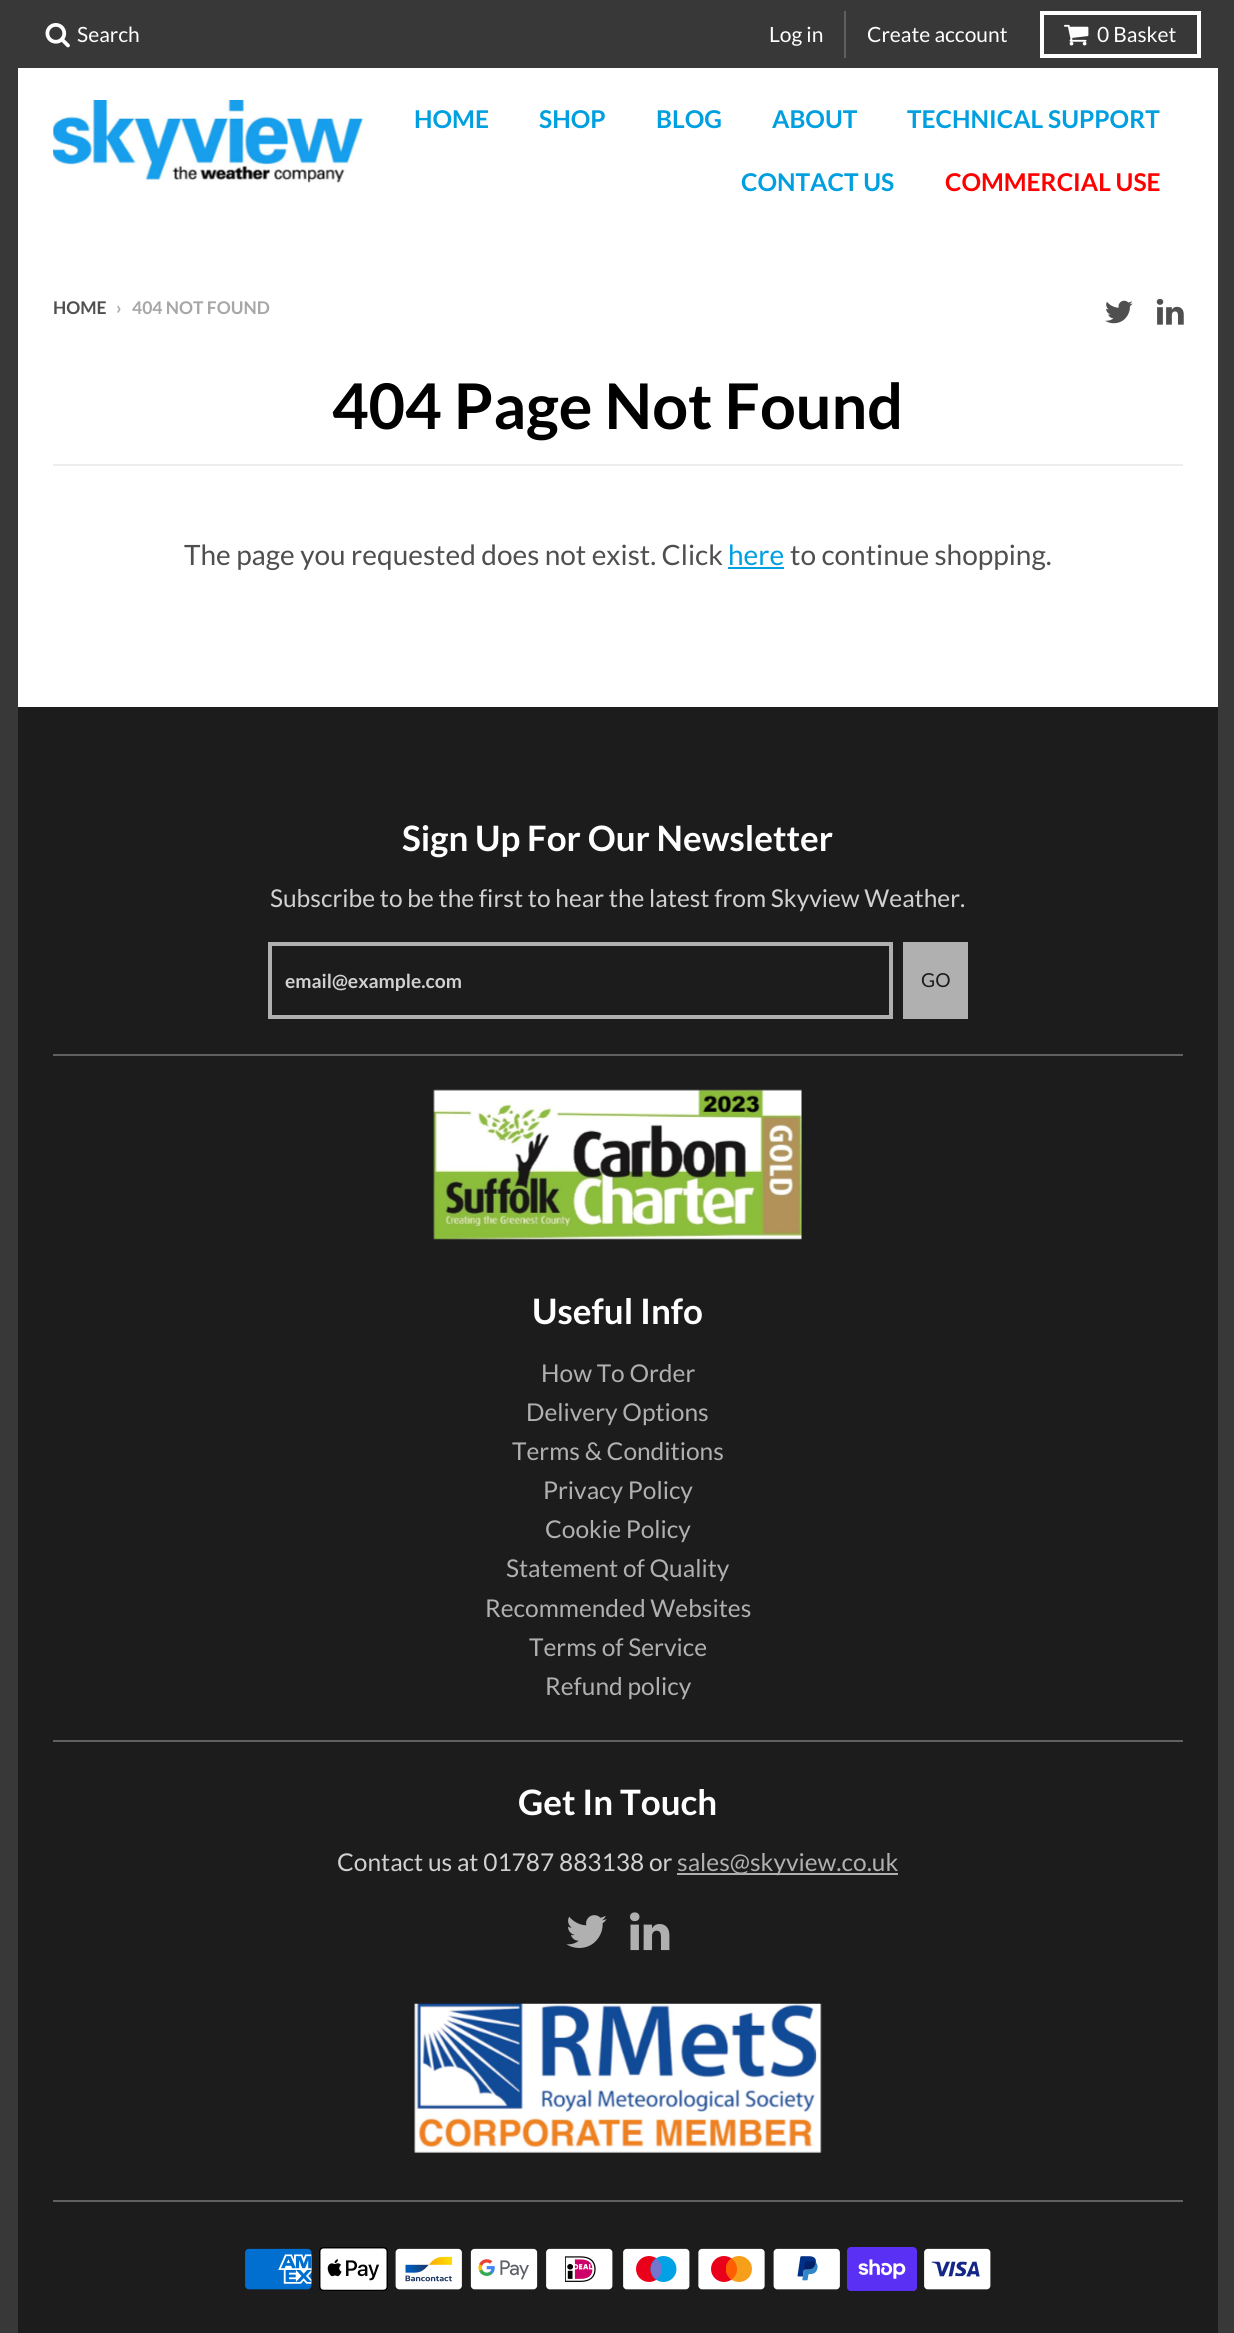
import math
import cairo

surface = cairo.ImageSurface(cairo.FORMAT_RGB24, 1234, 2333)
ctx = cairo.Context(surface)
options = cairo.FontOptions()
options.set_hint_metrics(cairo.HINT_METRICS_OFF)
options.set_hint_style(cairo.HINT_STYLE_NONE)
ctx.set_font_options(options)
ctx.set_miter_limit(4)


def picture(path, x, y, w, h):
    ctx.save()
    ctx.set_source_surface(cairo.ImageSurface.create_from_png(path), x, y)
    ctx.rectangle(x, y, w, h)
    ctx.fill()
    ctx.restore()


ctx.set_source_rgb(1, 1, 1)
ctx.paint()
ctx.set_source_rgb(0.22, 0.22, 0.22)
ctx.rectangle(1218, 0, 16, 2333)
ctx.fill()
ctx.rectangle(0, 0, 18, 2333)
ctx.fill()
ctx.rectangle(18, 0, 1200, 68)
ctx.fill()
picture("img1.png", 45, 23, 25, 25)
ctx.select_font_face("Lato")
ctx.set_font_size(21)
ctx.set_source_rgb(1, 1, 1)
ctx.move_to(77, 42)
ctx.show_text("Search")
ctx.set_source_rgb(0.373, 0.373, 0.373)
ctx.rectangle(844, 11, 2, 47)
ctx.fill()
ctx.set_source_rgb(1, 1, 1)
ctx.move_to(769, 42)
ctx.show_text("Log in")
ctx.move_to(867, 42)
ctx.show_text("Create account")
ctx.rectangle(1042, 13, 157, 43)
ctx.set_line_width(4)
ctx.stroke()
picture("img2.png", 1064, 24, 25, 22)
ctx.move_to(1097, 42)
ctx.show_text("0 Basket")
picture("img3.png", 53, 100, 310, 83)
ctx.select_font_face("Lato", cairo.FONT_SLANT_NORMAL, cairo.FONT_WEIGHT_BOLD)
ctx.set_font_size(24.5)
ctx.set_source_rgb(0, 0.624, 0.878)
ctx.move_to(414, 128)
ctx.show_text("HOME")
ctx.move_to(539, 128)
ctx.show_text("SHOP")
ctx.move_to(656, 128)
ctx.show_text("BLOG")
ctx.move_to(772, 128)
ctx.show_text("ABOUT")
ctx.move_to(907, 128)
ctx.show_text("TECHNICAL SUPPORT")
ctx.move_to(741, 191)
ctx.show_text("CONTACT US")
ctx.set_source_rgb(1, 0, 0)
ctx.move_to(945, 191)
ctx.show_text("COMMERCIAL USE")
ctx.set_font_size(17.5)
ctx.set_source_rgb(0.31, 0.31, 0.31)
ctx.move_to(53, 314)
ctx.show_text("HOME")
ctx.set_source_rgb(0.655, 0.655, 0.655)
ctx.move_to(116, 314)
ctx.show_text("›")
ctx.move_to(132, 314)
ctx.show_text("404 NOT FOUND")
picture("img4.png", 1105, 300, 28, 24)
picture("img5.png", 1156, 298, 28, 27)
ctx.set_source_rgb(0.929, 0.929, 0.929)
ctx.rectangle(53, 464, 1130, 2)
ctx.fill()
ctx.set_font_size(63)
ctx.set_source_rgb(0, 0, 0)
ctx.move_to(332, 429)
ctx.show_text("404 Page Not Found")
ctx.select_font_face("Lato")
ctx.set_font_size(28)
ctx.set_source_rgb(0.31, 0.31, 0.31)
ctx.move_to(184, 565)
ctx.show_text("The page you requested does not exist. Click")
ctx.set_source_rgb(0, 0.624, 0.878)
ctx.move_to(728, 565)
ctx.show_text("here")
ctx.rectangle(728, 567, 56, 2)
ctx.fill()
ctx.set_source_rgb(0.31, 0.31, 0.31)
ctx.move_to(790, 565)
ctx.show_text("to continue shopping.")
ctx.set_source_rgb(0.11, 0.11, 0.11)
ctx.rectangle(18, 707, 1200, 1626)
ctx.fill()
ctx.select_font_face("Lato", cairo.FONT_SLANT_NORMAL, cairo.FONT_WEIGHT_BOLD)
ctx.set_font_size(35)
ctx.set_source_rgb(1, 1, 1)
ctx.move_to(402, 851)
ctx.show_text("Sign Up For Our Newsletter")
ctx.select_font_face("Lato")
ctx.set_font_size(24.5)
ctx.set_source_rgb(0.82, 0.82, 0.82)
ctx.move_to(270, 907)
ctx.show_text("Subscribe to be the first to hear the latest from Skyview Weather.")
ctx.set_source_rgb(0.376, 0.376, 0.376)
ctx.rectangle(53, 1054, 1130, 2)
ctx.fill()
ctx.rectangle(270, 944, 621, 73)
ctx.set_source_rgb(0.69, 0.69, 0.69)
ctx.stroke()
ctx.save()
ctx.rectangle(285, 968, 590, 23)
ctx.clip()
ctx.select_font_face("Lato", cairo.FONT_SLANT_NORMAL, cairo.FONT_WEIGHT_BOLD)
ctx.set_font_size(19.25)
ctx.set_source_rgb(0.82, 0.82, 0.82)
ctx.move_to(285, 988)
ctx.show_text("email@example.com")
ctx.restore()
ctx.rectangle(903, 942, 65, 77)
ctx.fill()
ctx.set_font_size(19.25)
ctx.set_source_rgb(0.11, 0.11, 0.11)
ctx.move_to(921, 987)
ctx.show_text("GO")
picture("img6.png", 433, 1089, 369, 151)
ctx.select_font_face("Lato", cairo.FONT_SLANT_NORMAL, cairo.FONT_WEIGHT_BOLD)
ctx.set_font_size(35)
ctx.set_source_rgb(1, 1, 1)
ctx.move_to(532, 1324)
ctx.show_text("Useful Info")
ctx.select_font_face("Lato")
ctx.set_font_size(24.5)
ctx.set_source_rgb(0.69, 0.69, 0.69)
ctx.move_to(541, 1382)
ctx.show_text("How To Order")
ctx.move_to(526, 1421)
ctx.show_text("Delivery Options")
ctx.move_to(512, 1460)
ctx.show_text("Terms & Conditions")
ctx.move_to(543, 1499)
ctx.show_text("Privacy Policy")
ctx.move_to(545, 1538)
ctx.show_text("Cookie Policy")
ctx.move_to(506, 1577)
ctx.show_text("Statement of Quality")
ctx.move_to(485, 1617)
ctx.show_text("Recommended Websites")
ctx.move_to(529, 1656)
ctx.show_text("Terms of Service")
ctx.move_to(545, 1695)
ctx.show_text("Refund policy")
ctx.set_source_rgb(0.376, 0.376, 0.376)
ctx.rectangle(53, 1740, 1130, 2)
ctx.fill()
ctx.select_font_face("Lato", cairo.FONT_SLANT_NORMAL, cairo.FONT_WEIGHT_BOLD)
ctx.set_font_size(35)
ctx.set_source_rgb(1, 1, 1)
ctx.move_to(518, 1815)
ctx.show_text("Get In Touch")
ctx.select_font_face("Lato")
ctx.set_font_size(24.5)
ctx.set_source_rgb(0.82, 0.82, 0.82)
ctx.move_to(337, 1871)
ctx.show_text("Contact us at 01787 883138 or")
ctx.set_source_rgb(0.69, 0.69, 0.69)
ctx.rectangle(677, 1873, 221, 2)
ctx.fill()
ctx.move_to(677, 1871)
ctx.show_text("sales@skyview.co.uk")
picture("img7.png", 566, 1915, 41, 33)
picture("img8.png", 630, 1912, 40, 39)
picture("img9.png", 414, 2003, 408, 150)
ctx.set_source_rgb(0.376, 0.376, 0.376)
ctx.rectangle(53, 2200, 1130, 2)
ctx.fill()
picture("img10.png", 245, 2248, 67, 42)
picture("img11.png", 319, 2247, 69, 44)
picture("img12.png", 395, 2248, 67, 42)
picture("img13.png", 470, 2248, 68, 42)
picture("img14.png", 546, 2248, 67, 42)
picture("img15.png", 623, 2248, 67, 42)
picture("img16.png", 698, 2248, 67, 42)
picture("img17.png", 773, 2248, 67, 42)
picture("img18.png", 847, 2247, 70, 44)
picture("img19.png", 924, 2248, 67, 42)
surface.write_to_png("page.png")
